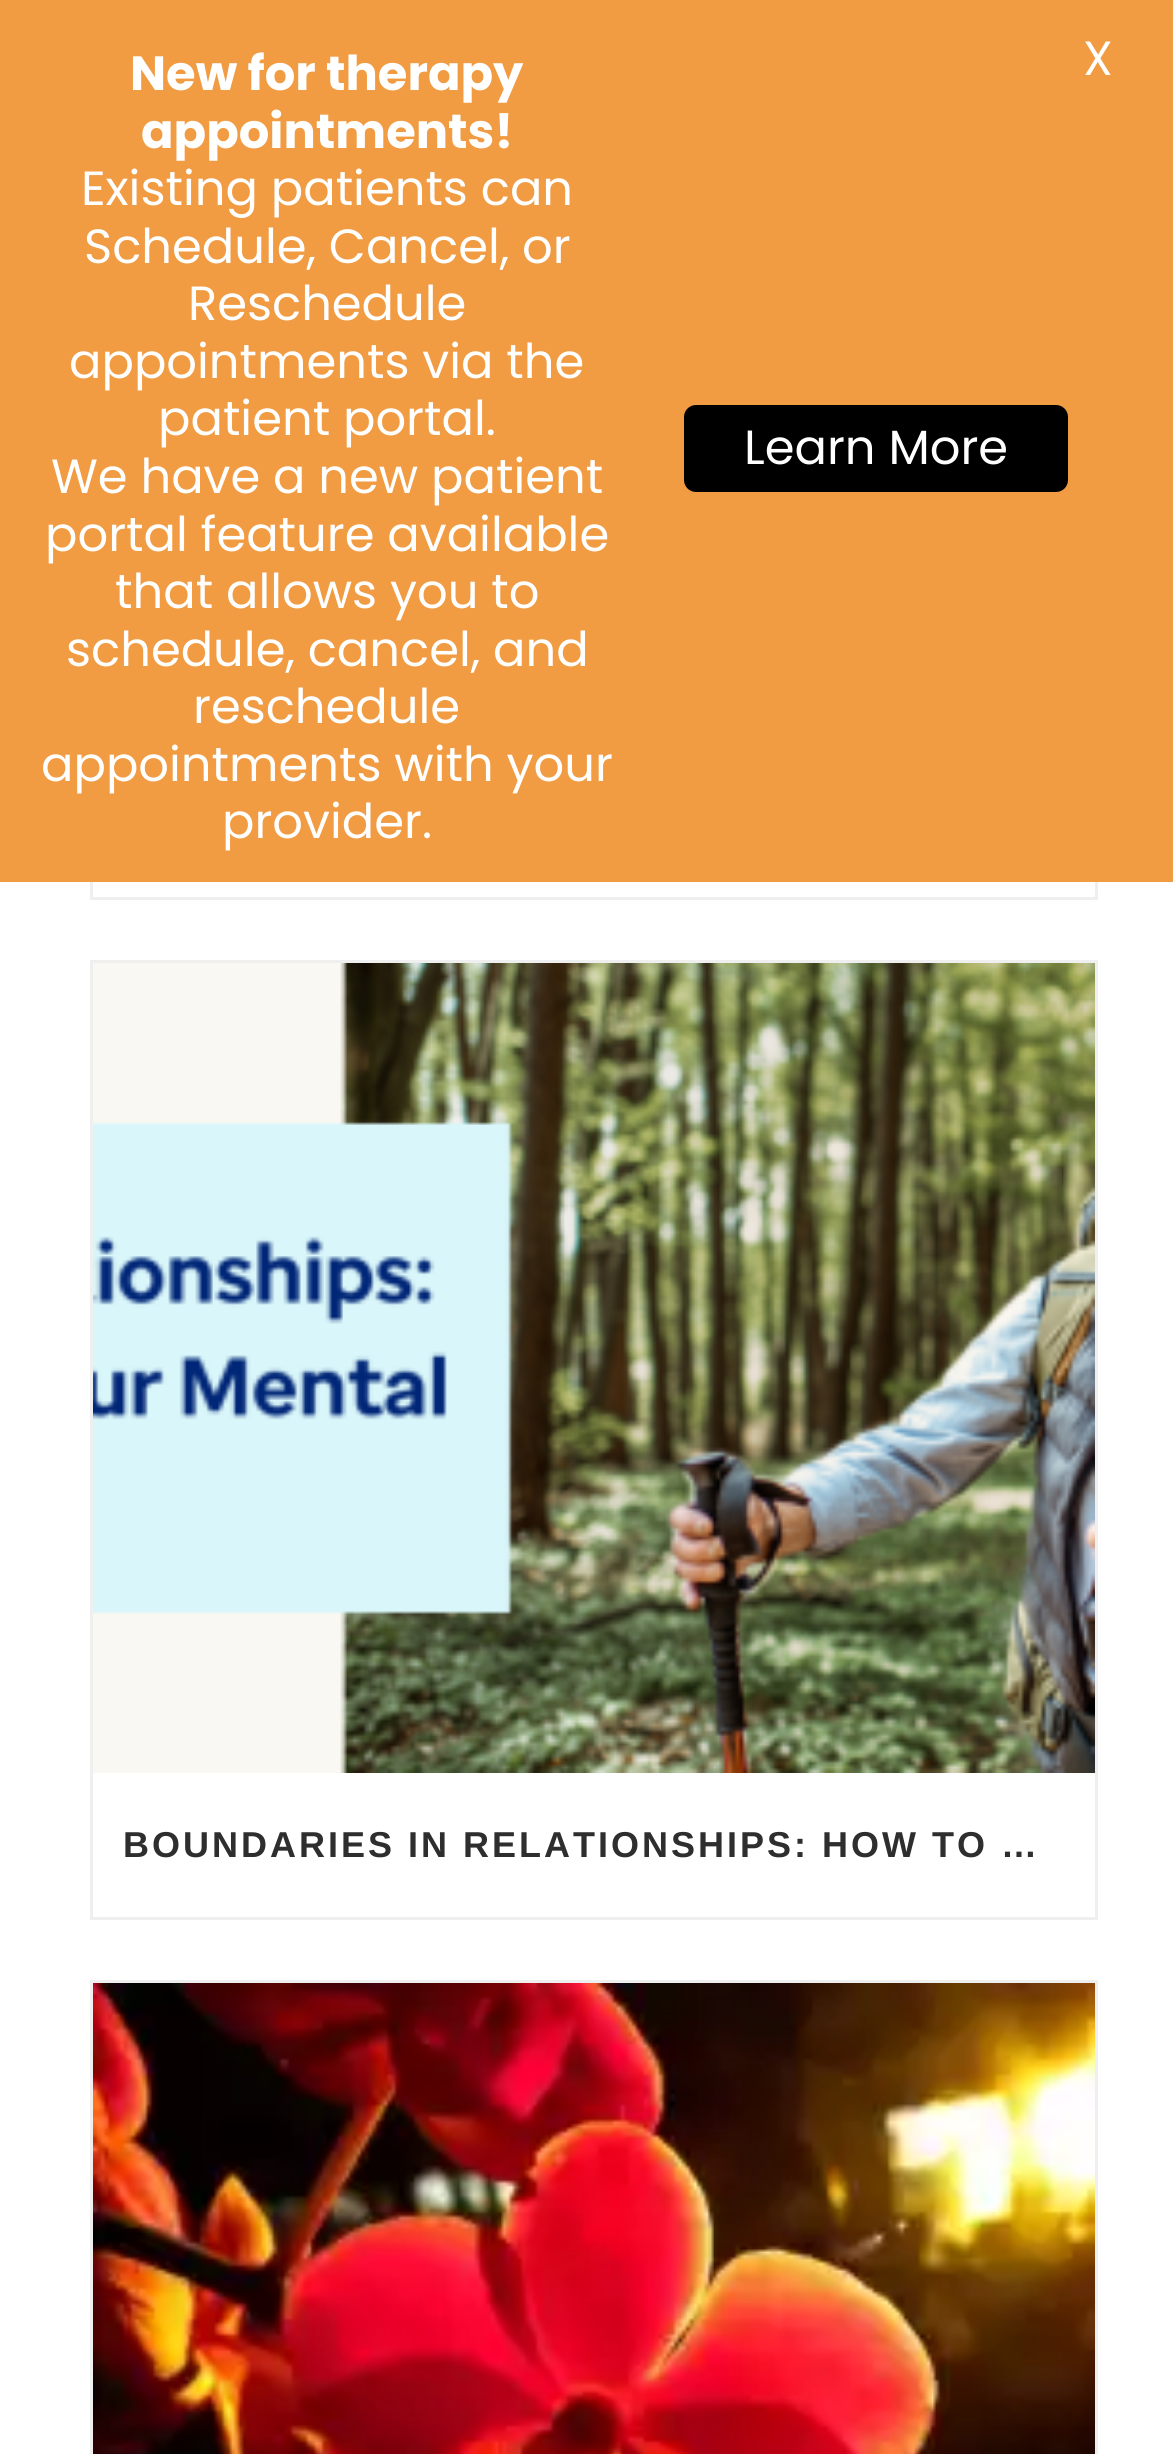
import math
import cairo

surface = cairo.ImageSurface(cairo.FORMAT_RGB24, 1173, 2454)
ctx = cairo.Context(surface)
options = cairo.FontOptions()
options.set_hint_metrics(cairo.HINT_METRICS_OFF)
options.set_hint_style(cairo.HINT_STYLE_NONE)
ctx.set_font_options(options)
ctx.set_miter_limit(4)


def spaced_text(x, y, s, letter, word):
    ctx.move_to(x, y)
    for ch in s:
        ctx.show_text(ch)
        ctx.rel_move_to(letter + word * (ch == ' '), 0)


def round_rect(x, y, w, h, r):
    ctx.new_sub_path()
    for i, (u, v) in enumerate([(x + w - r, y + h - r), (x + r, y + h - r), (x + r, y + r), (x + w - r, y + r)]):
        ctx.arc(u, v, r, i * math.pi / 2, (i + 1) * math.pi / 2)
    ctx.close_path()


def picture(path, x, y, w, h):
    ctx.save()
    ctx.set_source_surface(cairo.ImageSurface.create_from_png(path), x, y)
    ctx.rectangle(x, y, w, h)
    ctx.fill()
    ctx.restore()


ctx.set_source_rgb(1, 1, 1)
ctx.paint()
ctx.rectangle(91.5, -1.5, 1005, 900)
ctx.set_source_rgb(0.937, 0.937, 0.937)
ctx.set_line_width(3)
ctx.stroke()
ctx.set_source_rgb(0.945, 0.608, 0.259)
ctx.rectangle(0, 0, 1173, 882)
ctx.fill()
ctx.select_font_face("Poppins", cairo.FONT_SLANT_NORMAL, cairo.FONT_WEIGHT_BOLD)
ctx.set_font_size(48)
ctx.set_source_rgb(1, 1, 1)
ctx.move_to(130, 90)
ctx.show_text("New for therapy")
ctx.move_to(141, 148)
ctx.show_text("appointments!")
ctx.select_font_face("Poppins")
ctx.move_to(81, 205)
ctx.show_text("Existing patients can")
ctx.move_to(84, 263)
ctx.show_text("Schedule, Cancel, or")
ctx.move_to(188, 320)
ctx.show_text("Reschedule")
ctx.move_to(69, 378)
ctx.show_text("appointments via the")
ctx.move_to(158, 435)
ctx.show_text("patient portal.")
ctx.move_to(51, 493)
ctx.show_text("We have a new patient")
ctx.move_to(45, 551)
ctx.show_text("portal feature available")
ctx.move_to(115, 608)
ctx.show_text("that allows you to")
ctx.move_to(66, 666)
ctx.show_text("schedule, cancel, and")
ctx.move_to(193, 723)
ctx.show_text("reschedule")
ctx.move_to(41, 781)
ctx.show_text("appointments with your")
ctx.move_to(222, 838)
ctx.show_text("provider.")
ctx.set_source_rgb(0, 0, 0)
round_rect(684, 405, 384, 87, 12)
ctx.fill()
ctx.set_source_rgb(1, 1, 1)
ctx.move_to(744, 464)
ctx.show_text("Learn More")
ctx.move_to(1083, 75)
ctx.show_text("X")
ctx.rectangle(91.5, 961.5, 1005, 957)
ctx.set_source_rgb(0.937, 0.937, 0.937)
ctx.stroke()
picture("img1.png", 93, 963, 1002, 810)
ctx.select_font_face("Liberation Sans", cairo.FONT_SLANT_NORMAL, cairo.FONT_WEIGHT_BOLD)
ctx.set_font_size(36)
ctx.set_source_rgb(0.18, 0.18, 0.18)
spaced_text(123, 1857, "BOUNDARIES IN RELATIONSHIPS: HOW TO …", 3, 0)
ctx.rectangle(91.5, 1981.5, 1005, 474)
ctx.set_source_rgb(0.937, 0.937, 0.937)
ctx.stroke()
picture("img2.png", 93, 1983, 1002, 471)
surface.write_to_png("page.png")
